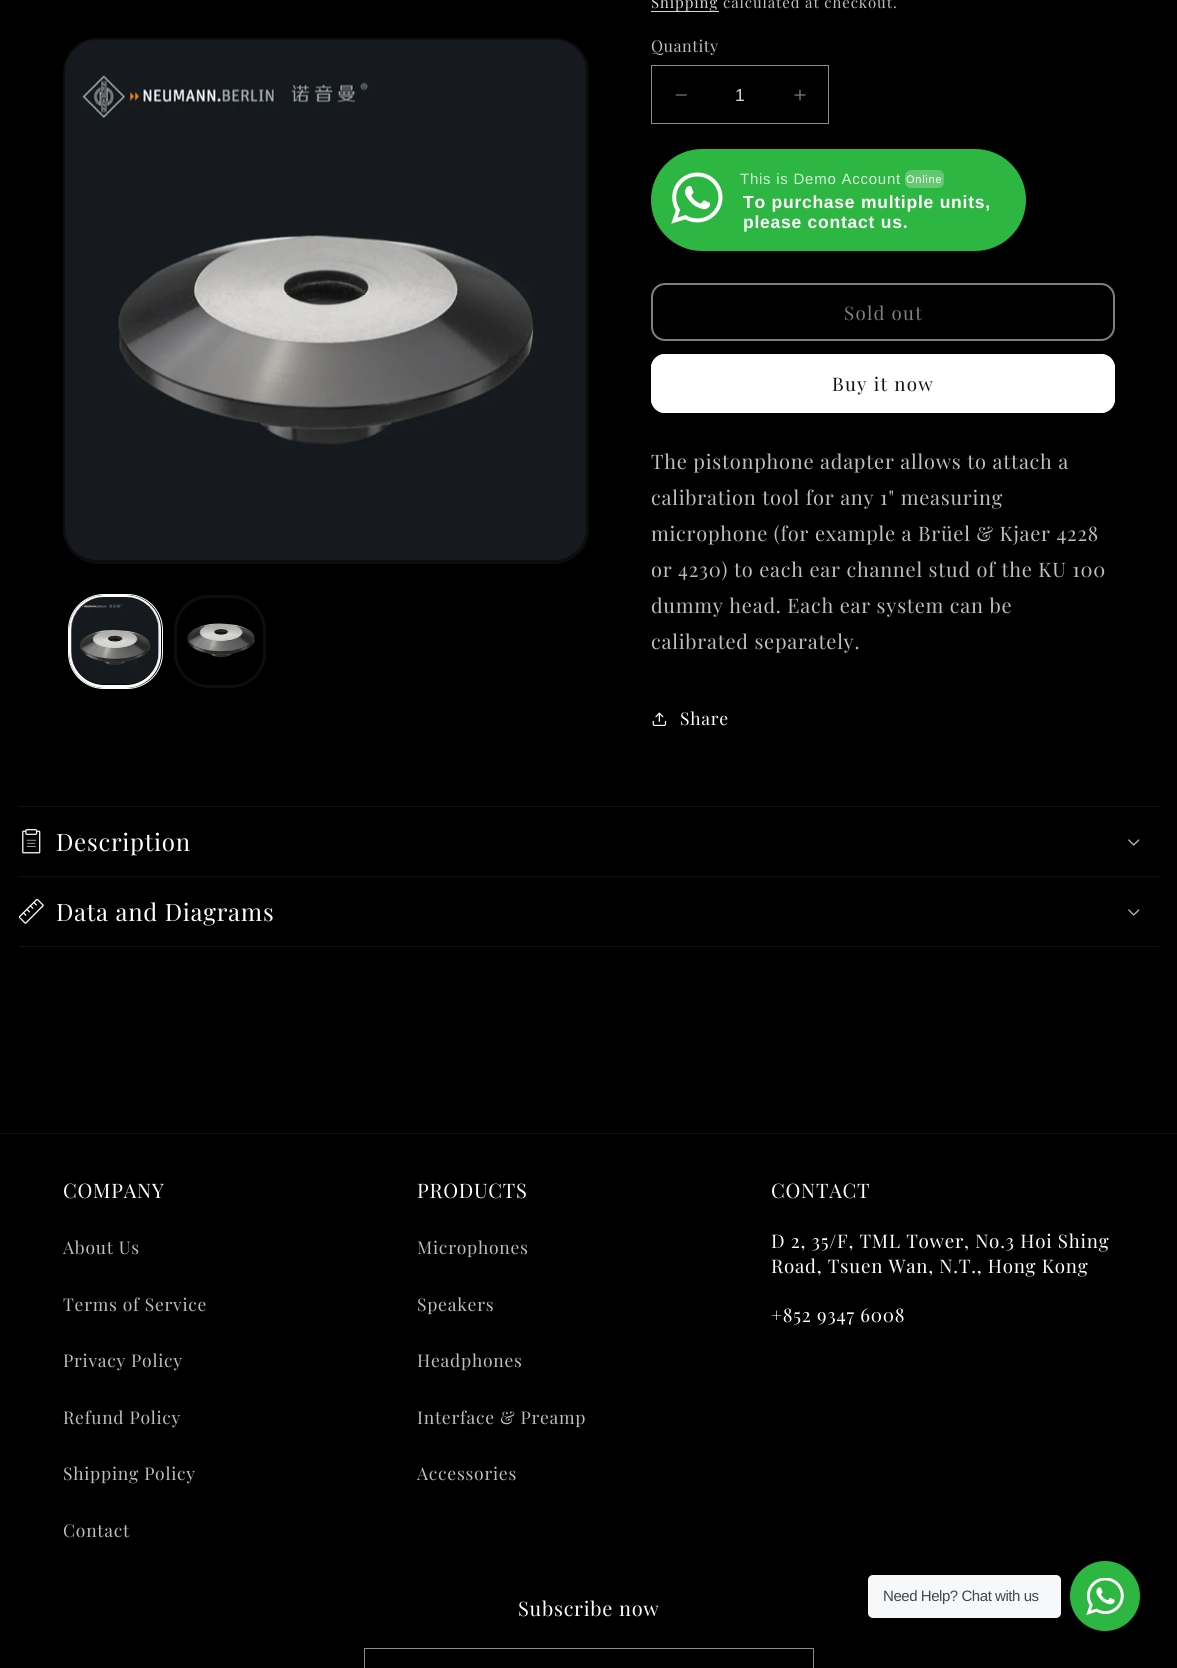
import math
import cairo

surface = cairo.ImageSurface(cairo.FORMAT_RGB24, 1177, 1668)
ctx = cairo.Context(surface)
options = cairo.FontOptions()
options.set_hint_metrics(cairo.HINT_METRICS_OFF)
options.set_hint_style(cairo.HINT_STYLE_NONE)
ctx.set_font_options(options)
ctx.set_miter_limit(4)


def spaced_text(x, y, s, letter, word):
    ctx.move_to(x, y)
    for ch in s:
        ctx.show_text(ch)
        ctx.rel_move_to(letter + word * (ch == ' '), 0)


def round_rect(x, y, w, h, r):
    ctx.new_sub_path()
    for i, (u, v) in enumerate([(x + w - r, y + h - r), (x + r, y + h - r), (x + r, y + r), (x + w - r, y + r)]):
        ctx.arc(u, v, r, i * math.pi / 2, (i + 1) * math.pi / 2)
    ctx.close_path()


def picture(path, x, y, w, h):
    ctx.save()
    ctx.set_source_surface(cairo.ImageSurface.create_from_png(path), x, y)
    ctx.rectangle(x, y, w, h)
    ctx.fill()
    ctx.restore()


ctx.set_source_rgb(0, 0, 0)
ctx.paint()
round_rect(64.5, 39.5, 523, 523, 33.5)
ctx.set_source_rgb(0.051, 0.051, 0.051)
ctx.set_line_width(3)
ctx.stroke()
picture("img1.png", 65, 40, 521, 521)
round_rect(68.5, 594.5, 94, 94, 35.5)
ctx.set_source_rgb(1, 1, 1)
ctx.set_line_width(1)
ctx.stroke()
round_rect(70.5, 596.5, 89, 90, 33.5)
ctx.set_line_width(3)
ctx.stroke()
picture("img2.png", 71, 597, 89, 88)
round_rect(175.5, 596.5, 89, 90, 33.5)
ctx.set_source_rgb(0.051, 0.051, 0.051)
ctx.stroke()
picture("img3.png", 187, 623, 68, 35)
ctx.select_font_face("Playfair Display")
ctx.set_font_size(15)
ctx.set_source_rgb(0.851, 0.851, 0.851)
spaced_text(651, 8, "Shipping", 0.9, 0)
ctx.rectangle(651, 11, 68, 1)
ctx.fill()
ctx.set_source_rgb(0.749, 0.749, 0.749)
spaced_text(723, 8, "calculated at checkout.", 0.9, 0)
ctx.set_font_size(16.25)
spaced_text(651, 52, "Quantity", 0.5, 0)
picture("img4.png", 675, 94, 12, 2)
picture("img5.png", 794, 89, 12, 12)
ctx.rectangle(651.5, 65.5, 177, 58)
ctx.set_source_rgb(0.549, 0.549, 0.549)
ctx.set_line_width(1)
ctx.stroke()
ctx.select_font_face("Liberation Sans")
ctx.set_font_size(17.5)
ctx.set_source_rgb(0.851, 0.851, 0.851)
ctx.move_to(735, 101)
ctx.show_text("1")
ctx.set_source_rgb(0.176, 0.718, 0.259)
round_rect(651, 149, 375, 102, 51)
ctx.fill()
picture("img6.png", 671, 172, 52, 52)
ctx.set_font_size(15)
ctx.set_source_rgb(0.835, 0.941, 0.851)
spaced_text(740, 184, "This is Demo Account", 0.75, 0)
ctx.set_source_rgb(0.384, 0.788, 0.443)
round_rect(905, 170, 39, 18, 6)
ctx.fill()
ctx.set_font_size(11)
ctx.set_source_rgb(1, 1, 1)
spaced_text(906, 183, "Online", 0.75, 0)
ctx.select_font_face("Liberation Sans", cairo.FONT_SLANT_NORMAL, cairo.FONT_WEIGHT_BOLD)
ctx.set_font_size(17.5)
spaced_text(743, 208, "To purchase multiple units,", 0.75, 0)
spaced_text(743, 228, "please contact us.", 0.75, 0)
round_rect(652, 284, 462, 56, 13)
ctx.set_source_rgb(0.502, 0.502, 0.502)
ctx.set_line_width(2)
ctx.stroke()
ctx.select_font_face("Playfair Display")
ctx.set_font_size(18.75)
spaced_text(844, 320, "Sold out", 1.25, 0)
ctx.set_source_rgb(1, 1, 1)
round_rect(651, 354, 464, 59, 14)
ctx.fill()
round_rect(651.5, 354.5, 463, 58, 13.5)
ctx.set_line_width(1)
ctx.stroke()
ctx.set_source_rgb(0.071, 0.071, 0.071)
spaced_text(832, 391, "Buy it now", 1.25, 0)
ctx.set_font_size(20)
ctx.set_source_rgb(0.749, 0.749, 0.749)
spaced_text(651, 469, "The pistonphone adapter allows to attach a", 0.75, 0)
spaced_text(651, 505, "calibration tool for any 1\" measuring", 0.75, 0)
spaced_text(651, 541, "microphone (for example a Brüel & Kjaer 4228", 0.75, 0)
spaced_text(651, 577, "or 4230) to each ear channel stud of the KU 100", 0.75, 0)
spaced_text(651, 613, "dummy head. Each ear system can be", 0.75, 0)
spaced_text(651, 649, "calibrated separately.", 0.75, 0)
picture("img7.png", 652, 712, 15, 14)
ctx.set_font_size(17.5)
ctx.set_source_rgb(1, 1, 1)
spaced_text(680, 725, "Share", 0.75, 0)
ctx.set_source_rgb(0.078, 0.078, 0.078)
ctx.rectangle(19, 806, 1140, 1)
ctx.fill()
ctx.rectangle(19, 876, 1140, 1)
ctx.fill()
picture("img8.png", 22, 829, 19, 25)
ctx.set_font_size(24)
ctx.set_source_rgb(1, 1, 1)
spaced_text(56, 851, "Description", 0.75, 0)
picture("img9.png", 1128, 839, 12, 7)
ctx.set_source_rgb(0.078, 0.078, 0.078)
ctx.rectangle(19, 946, 1140, 1)
ctx.fill()
picture("img10.png", 19, 899, 25, 25)
ctx.set_source_rgb(1, 1, 1)
spaced_text(56, 921, "Data and Diagrams", 0.75, 0)
picture("img9.png", 1128, 909, 12, 7)
ctx.set_source_rgb(0.078, 0.078, 0.078)
ctx.rectangle(0, 1133, 1177, 1)
ctx.fill()
ctx.set_font_size(20)
ctx.set_source_rgb(1, 1, 1)
spaced_text(63, 1198, "COMPANY", 0.75, 0)
ctx.set_font_size(17.5)
ctx.set_source_rgb(0.749, 0.749, 0.749)
spaced_text(63, 1254, "About Us", 0.75, 0)
spaced_text(63, 1311, "Terms of Service", 0.75, 0)
spaced_text(63, 1367, "Privacy Policy", 0.75, 0)
spaced_text(63, 1424, "Refund Policy", 0.75, 0)
spaced_text(63, 1480, "Shipping Policy", 0.75, 0)
spaced_text(63, 1537, "Contact", 0.75, 0)
ctx.set_font_size(20)
ctx.set_source_rgb(1, 1, 1)
spaced_text(417, 1198, "PRODUCTS", 0.75, 0)
ctx.set_font_size(17.5)
ctx.set_source_rgb(0.749, 0.749, 0.749)
spaced_text(417, 1254, "Microphones", 0.75, 0)
spaced_text(417, 1311, "Speakers", 0.75, 0)
spaced_text(417, 1367, "Headphones", 0.75, 0)
spaced_text(417, 1424, "Interface & Preamp", 0.75, 0)
spaced_text(417, 1480, "Accessories", 0.75, 0)
ctx.set_font_size(20)
ctx.set_source_rgb(1, 1, 1)
spaced_text(771, 1198, "CONTACT", 0.75, 0)
ctx.set_font_size(18.75)
spaced_text(771, 1248, "D 2, 35/F, TML Tower, No.3 Hoi Shing", 0.75, 0)
spaced_text(771, 1273, "Road, Tsuen Wan, N.T., Hong Kong", 0.75, 0)
spaced_text(771, 1322, "+852 9347 6008", 0.75, 0)
ctx.set_font_size(20)
spaced_text(518, 1616, "Subscribe now", 0.75, 0)
ctx.rectangle(364.5, 1648.5, 449, 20)
ctx.set_source_rgb(0.549, 0.549, 0.549)
ctx.stroke()
ctx.set_source_rgb(0.961, 0.969, 0.976)
round_rect(868, 1575, 193, 43, 5)
ctx.fill()
ctx.select_font_face("Liberation Sans")
ctx.set_font_size(15)
ctx.set_source_rgb(0.263, 0.278, 0.306)
spaced_text(883, 1601, "Need Help? Chat with us", -0.45, 0)
ctx.set_source_rgb(0.176, 0.718, 0.259)
ctx.new_path()
ctx.arc(1105, 1596, 35, 0, 2 * math.pi)
ctx.fill()
picture("img11.png", 1086, 1578, 38, 37)
surface.write_to_png("page.png")
